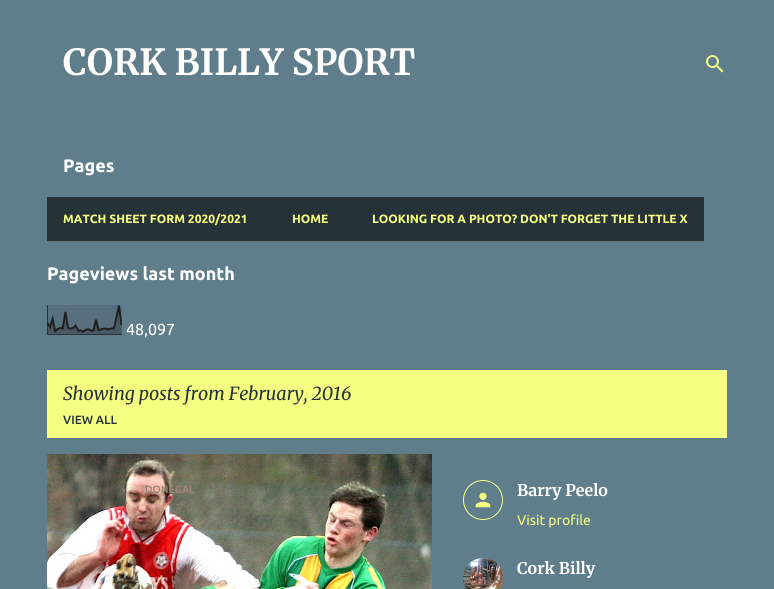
import math
import cairo

surface = cairo.ImageSurface(cairo.FORMAT_RGB24, 774, 589)
ctx = cairo.Context(surface)
options = cairo.FontOptions()
options.set_hint_metrics(cairo.HINT_METRICS_OFF)
options.set_hint_style(cairo.HINT_STYLE_NONE)
ctx.set_font_options(options)
ctx.set_miter_limit(4)


def picture(path, x, y, w, h):
    ctx.save()
    ctx.set_source_surface(cairo.ImageSurface.create_from_png(path), x, y)
    ctx.rectangle(x, y, w, h)
    ctx.fill()
    ctx.restore()


ctx.set_source_rgb(0.376, 0.49, 0.545)
ctx.paint()
ctx.select_font_face("Merriweather", cairo.FONT_SLANT_NORMAL, cairo.FONT_WEIGHT_BOLD)
ctx.set_font_size(36)
ctx.set_source_rgb(1, 1, 1)
ctx.move_to(63, 75)
ctx.show_text("CORK BILLY SPORT")
picture("img1.png", 706, 55, 18, 18)
ctx.select_font_face("Ubuntu", cairo.FONT_SLANT_NORMAL, cairo.FONT_WEIGHT_BOLD)
ctx.set_font_size(18)
ctx.move_to(63, 172)
ctx.show_text("Pages")
ctx.set_source_rgb(0.149, 0.196, 0.22)
ctx.rectangle(47, 197, 657, 44)
ctx.fill()
ctx.set_font_size(12)
ctx.set_source_rgb(0.957, 1, 0.506)
ctx.move_to(63, 223)
ctx.show_text("MATCH SHEET FORM 2020/2021")
ctx.move_to(292, 223)
ctx.show_text("HOME")
ctx.move_to(372, 223)
ctx.show_text("LOOKING FOR A PHOTO? DON'T FORGET THE LITTLE X")
ctx.set_font_size(18)
ctx.set_source_rgb(1, 1, 1)
ctx.move_to(47, 280)
ctx.show_text("Pageviews last month")
picture("img2.png", 47, 305, 75, 30)
ctx.select_font_face("Ubuntu")
ctx.set_font_size(16)
ctx.move_to(126, 335)
ctx.show_text("48,097")
ctx.set_source_rgb(0.957, 1, 0.506)
ctx.rectangle(47, 370, 680, 68)
ctx.fill()
ctx.select_font_face("Merriweather", cairo.FONT_SLANT_ITALIC)
ctx.set_font_size(18)
ctx.set_source_rgb(0.149, 0.196, 0.22)
ctx.move_to(63, 400)
ctx.show_text("Showing posts from February, 2016")
ctx.select_font_face("Ubuntu Medium")
ctx.set_font_size(12)
ctx.move_to(63, 424)
ctx.show_text("VIEW ALL")
picture("img3.png", 47, 454, 385, 135)
ctx.set_font_size(10.5)
ctx.set_source_rgb(0.616, 0.529, 0.463)
ctx.move_to(145, 493)
ctx.show_text("DONEGAL")
ctx.new_path()
ctx.arc(483, 500, 19.5, 0, 2 * math.pi)
ctx.set_source_rgb(0.957, 1, 0.506)
ctx.set_line_width(1)
ctx.stroke()
picture("img4.png", 475, 492, 16, 16)
ctx.select_font_face("Merriweather", cairo.FONT_SLANT_NORMAL, cairo.FONT_WEIGHT_BOLD)
ctx.set_font_size(16)
ctx.set_source_rgb(1, 1, 1)
ctx.move_to(517, 496)
ctx.show_text("Barry Peelo")
ctx.select_font_face("Ubuntu")
ctx.set_font_size(14)
ctx.set_source_rgb(0.957, 1, 0.506)
ctx.move_to(517, 525)
ctx.show_text("Visit profile")
picture("img5.png", 463, 558, 40, 31)
ctx.select_font_face("Merriweather", cairo.FONT_SLANT_NORMAL, cairo.FONT_WEIGHT_BOLD)
ctx.set_font_size(16)
ctx.set_source_rgb(1, 1, 1)
ctx.move_to(517, 574)
ctx.show_text("Cork Billy")
surface.write_to_png("page.png")
